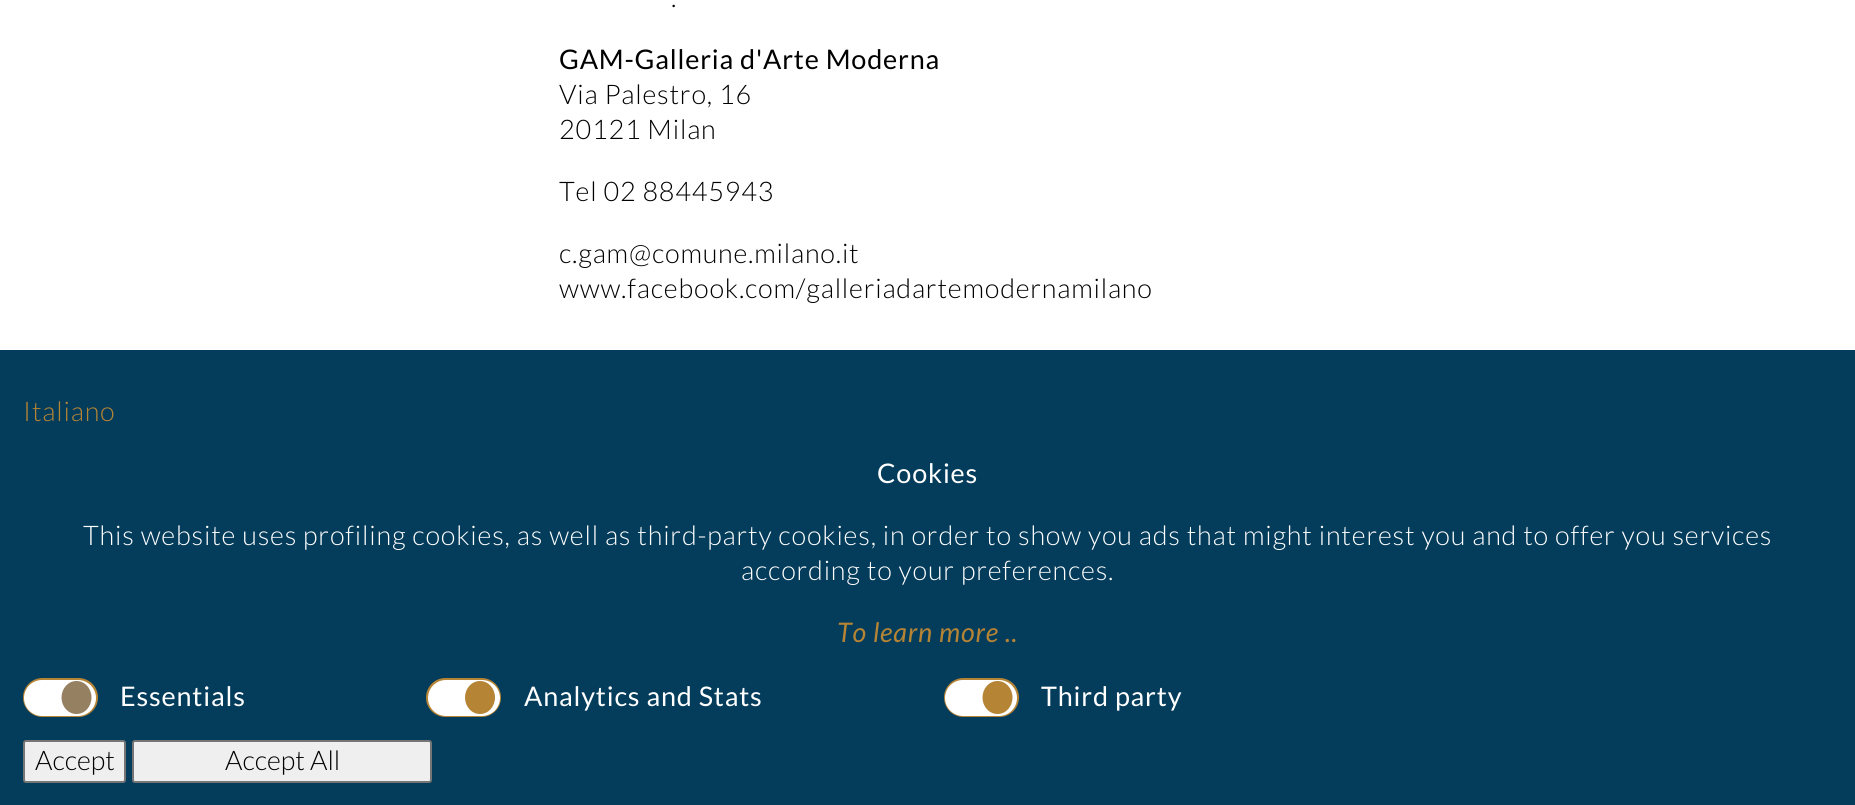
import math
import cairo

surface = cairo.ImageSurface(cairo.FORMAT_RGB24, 1855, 805)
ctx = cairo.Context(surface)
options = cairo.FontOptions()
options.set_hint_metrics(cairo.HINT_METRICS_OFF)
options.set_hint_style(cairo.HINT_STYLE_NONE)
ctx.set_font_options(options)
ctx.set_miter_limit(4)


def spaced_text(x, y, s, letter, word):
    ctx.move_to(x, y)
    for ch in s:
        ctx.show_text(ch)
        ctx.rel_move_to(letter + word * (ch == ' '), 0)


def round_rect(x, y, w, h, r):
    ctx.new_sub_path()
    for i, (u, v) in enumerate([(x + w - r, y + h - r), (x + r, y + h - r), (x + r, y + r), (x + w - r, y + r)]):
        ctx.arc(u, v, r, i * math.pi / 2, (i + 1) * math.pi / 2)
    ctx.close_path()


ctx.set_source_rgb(1, 1, 1)
ctx.paint()
ctx.select_font_face("Lato Light")
ctx.set_font_size(27)
ctx.set_source_rgb(0, 0, 0)
spaced_text(671, 7, ".", 0.81, 0)
ctx.select_font_face("Lato")
spaced_text(559, 69, "GAM-Galleria d'Arte Moderna", 0.81, 0)
ctx.select_font_face("Lato Light")
spaced_text(559, 104, "Via Palestro, 16", 0.81, 0)
spaced_text(559, 139, "20121 Milan", 0.81, 0)
spaced_text(559, 201, "Tel 02 88445943", 0.81, 0)
spaced_text(559, 263, "c.gam@comune.milano.it", 0.81, 0)
spaced_text(559, 298, "www.facebook.com/galleriadartemodernamilano", 0.81, 0)
ctx.set_source_rgb(0.016, 0.235, 0.357)
ctx.rectangle(0, 350, 1855, 455)
ctx.fill()
ctx.set_source_rgb(0.71, 0.518, 0.208)
spaced_text(23, 421, "Italiano", 0.81, 0)
ctx.select_font_face("Lato")
ctx.set_source_rgb(1, 1, 1)
spaced_text(877, 483, "Cookies", 0.81, 0)
ctx.select_font_face("Lato Light")
spaced_text(83, 545, "This website uses profiling cookies, as well as third-party cookies, in order to show you ads that might interest you and to offer you services", 0.81, 0)
spaced_text(741, 580, "according to your preferences.", 0.81, 0)
ctx.select_font_face("Lato", cairo.FONT_SLANT_ITALIC)
ctx.set_source_rgb(0.71, 0.518, 0.208)
spaced_text(837, 642, "To learn more ..", 0.81, 0)
round_rect(23, 678, 75, 39, 19.5)
ctx.fill()
ctx.set_source_rgb(1, 1, 1)
round_rect(24, 680, 72, 36, 18)
ctx.fill()
ctx.set_source_rgb(0.584, 0.506, 0.384)
ctx.new_path()
ctx.move_to(76.5, 681)
ctx.curve_to(85, 681, 91.5, 688.5, 91.5, 697.5)
ctx.curve_to(91.5, 706.5, 85, 714, 76.5, 714)
ctx.curve_to(68, 714, 61.5, 706.5, 61.5, 697.5)
ctx.curve_to(61.5, 688.5, 68, 681, 76.5, 681)
ctx.close_path()
ctx.fill()
ctx.select_font_face("Lato")
ctx.set_source_rgb(1, 1, 1)
spaced_text(120, 706, "Essentials", 0.81, 0)
ctx.set_source_rgb(0.71, 0.518, 0.208)
round_rect(426, 678, 75, 39, 19.5)
ctx.fill()
ctx.set_source_rgb(1, 1, 1)
round_rect(428, 680, 72, 36, 18)
ctx.fill()
ctx.set_source_rgb(0.71, 0.518, 0.208)
ctx.new_path()
ctx.move_to(480, 681)
ctx.curve_to(488.5, 681, 495, 688.5, 495, 697.5)
ctx.curve_to(495, 706.5, 488.5, 714, 480, 714)
ctx.curve_to(471.5, 714, 465, 706.5, 465, 697.5)
ctx.curve_to(465, 688.5, 471.5, 681, 480, 681)
ctx.close_path()
ctx.fill()
ctx.set_source_rgb(1, 1, 1)
spaced_text(524, 706, "Analytics and Stats", 0.81, 0)
ctx.set_source_rgb(0.71, 0.518, 0.208)
round_rect(944, 678, 75, 39, 19.5)
ctx.fill()
ctx.set_source_rgb(1, 1, 1)
round_rect(945, 680, 72, 36, 18)
ctx.fill()
ctx.set_source_rgb(0.71, 0.518, 0.208)
ctx.new_path()
ctx.move_to(997.5, 681)
ctx.curve_to(1006, 681, 1012.5, 688.5, 1012.5, 697.5)
ctx.curve_to(1012.5, 706.5, 1006, 714, 997.5, 714)
ctx.curve_to(989, 714, 982.5, 706.5, 982.5, 697.5)
ctx.curve_to(982.5, 688.5, 989, 681, 997.5, 681)
ctx.close_path()
ctx.fill()
ctx.set_source_rgb(1, 1, 1)
spaced_text(1041, 706, "Third party", 0.81, 0)
ctx.set_source_rgb(0.937, 0.937, 0.937)
round_rect(24, 741, 101, 41, 2)
ctx.fill_preserve()
ctx.set_source_rgb(0.463, 0.463, 0.463)
ctx.stroke()
ctx.select_font_face("Lato Light")
ctx.set_source_rgb(0, 0, 0)
ctx.move_to(35, 770)
ctx.show_text("Accept")
ctx.set_source_rgb(0.937, 0.937, 0.937)
round_rect(133, 741, 298, 41, 2)
ctx.fill_preserve()
ctx.set_source_rgb(0.463, 0.463, 0.463)
ctx.stroke()
ctx.set_source_rgb(0, 0, 0)
ctx.move_to(225, 770)
ctx.show_text("Accept All")
surface.write_to_png("page.png")
